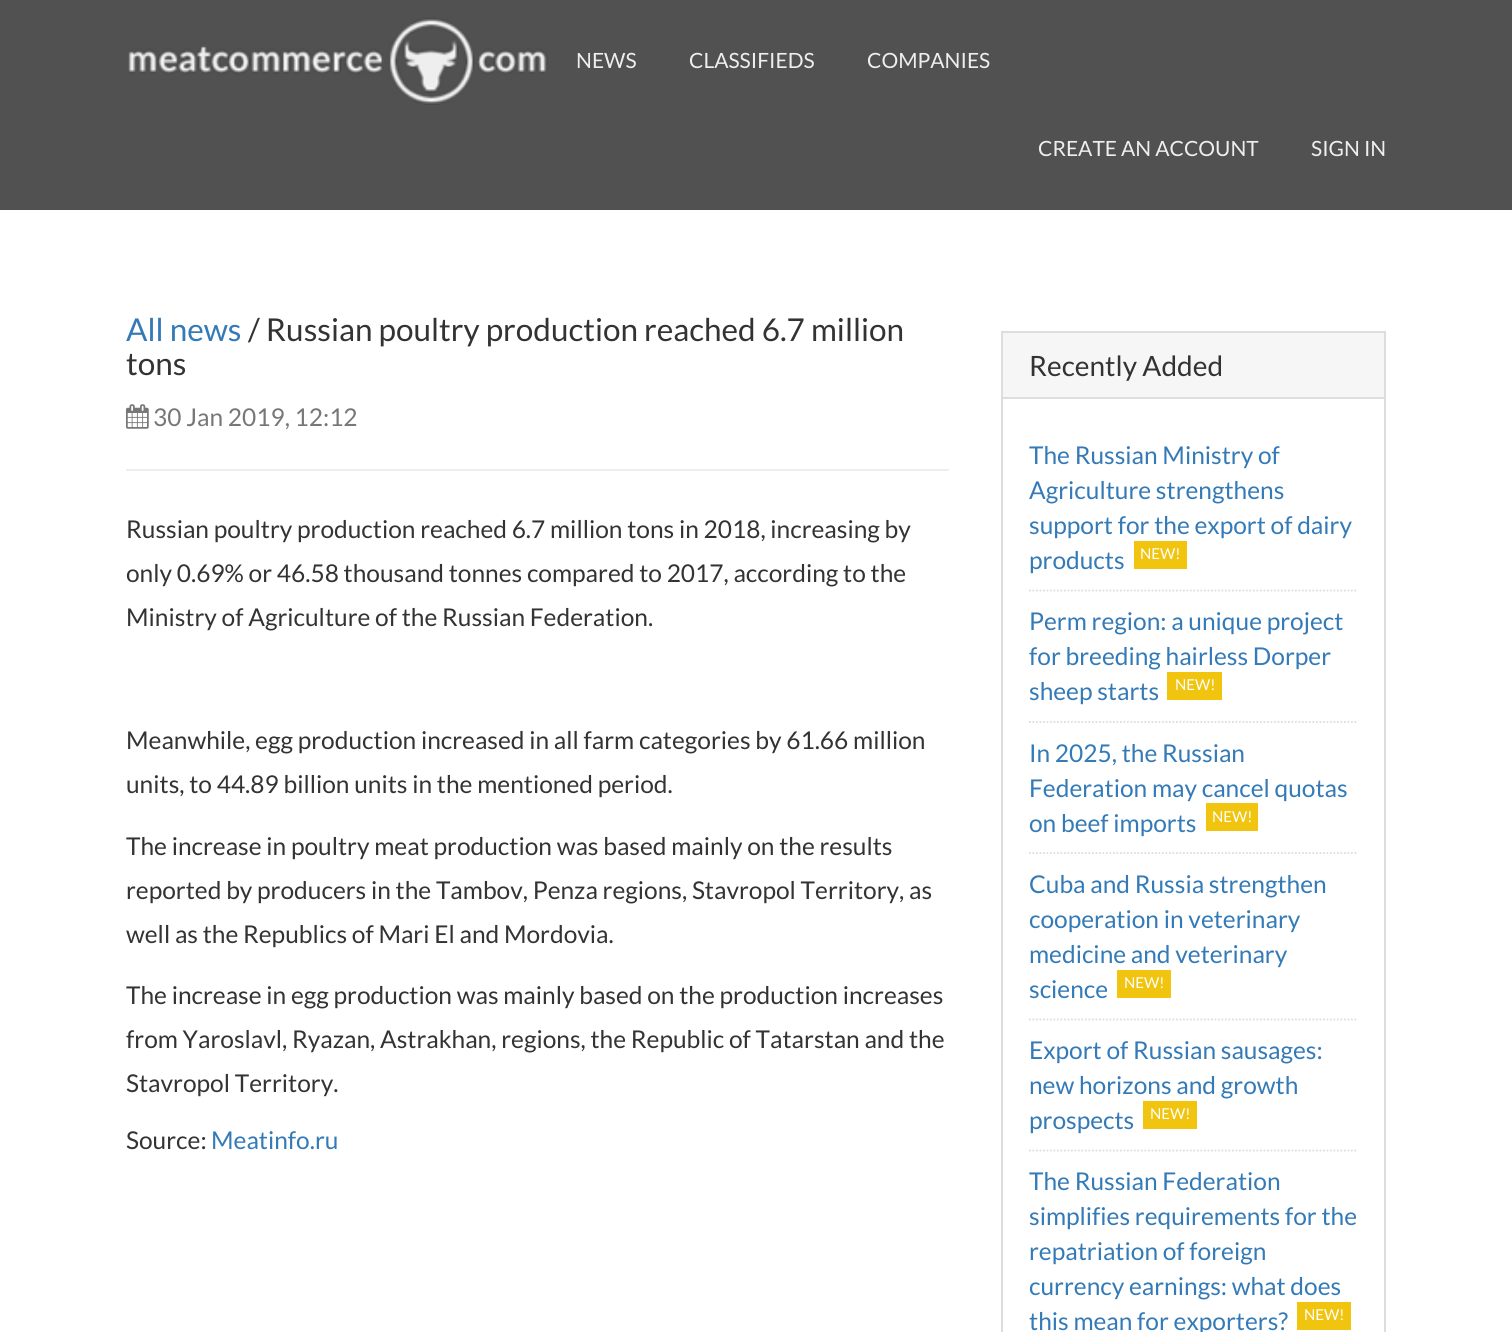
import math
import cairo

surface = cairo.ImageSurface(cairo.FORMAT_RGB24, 1512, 1332)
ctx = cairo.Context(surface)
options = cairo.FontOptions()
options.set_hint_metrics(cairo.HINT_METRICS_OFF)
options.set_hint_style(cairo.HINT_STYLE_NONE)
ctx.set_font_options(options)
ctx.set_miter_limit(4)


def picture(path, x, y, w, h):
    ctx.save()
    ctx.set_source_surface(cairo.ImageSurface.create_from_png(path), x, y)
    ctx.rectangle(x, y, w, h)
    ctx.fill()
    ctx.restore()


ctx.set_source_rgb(1, 1, 1)
ctx.paint()
ctx.set_source_rgb(0.318, 0.318, 0.318)
ctx.rectangle(0, 0, 1512, 210)
ctx.fill()
picture("img1.png", 128, 17, 420, 88)
ctx.select_font_face("Lato")
ctx.set_font_size(21)
ctx.set_source_rgb(0.933, 0.933, 0.933)
ctx.move_to(576, 68)
ctx.show_text("NEWS")
ctx.move_to(689, 68)
ctx.show_text("CLASSIFIEDS")
ctx.move_to(867, 68)
ctx.show_text("COMPANIES")
ctx.move_to(1038, 156)
ctx.show_text("CREATE AN ACCOUNT")
ctx.move_to(1311, 156)
ctx.show_text("SIGN IN")
ctx.set_font_size(31.5)
ctx.set_source_rgb(0.2, 0.478, 0.718)
ctx.move_to(126, 341)
ctx.show_text("All news")
ctx.set_source_rgb(0.2, 0.2, 0.2)
ctx.move_to(248, 341)
ctx.show_text("/ Russian poultry production reached 6.7 million")
ctx.move_to(126, 375)
ctx.show_text("tons")
picture("img2.png", 126, 404, 23, 25)
ctx.set_font_size(24.5)
ctx.set_source_rgb(0.467, 0.467, 0.467)
ctx.move_to(153, 426)
ctx.show_text("30 Jan 2019, 12:12")
ctx.set_source_rgb(0.933, 0.933, 0.933)
ctx.rectangle(126, 469, 823, 2)
ctx.fill()
ctx.set_source_rgb(0.2, 0.2, 0.2)
ctx.move_to(126, 538)
ctx.show_text("Russian poultry production reached 6.7 million tons in 2018, increasing by")
ctx.move_to(126, 582)
ctx.show_text("only 0.69% or 46.58 thousand tonnes compared to 2017, according to the")
ctx.move_to(126, 626)
ctx.show_text("Ministry of Agriculture of the Russian Federation.")
ctx.move_to(126, 749)
ctx.show_text("Meanwhile, egg production increased in all farm categories by 61.66 million")
ctx.move_to(126, 793)
ctx.show_text("units, to 44.89 billion units in the mentioned period.")
ctx.move_to(126, 855)
ctx.show_text("The increase in poultry meat production was based mainly on the results")
ctx.move_to(126, 899)
ctx.show_text("reported by producers in the Tambov, Penza regions, Stavropol Territory, as")
ctx.move_to(126, 943)
ctx.show_text("well as the Republics of Mari El and Mordovia.")
ctx.move_to(126, 1004)
ctx.show_text("The increase in egg production was mainly based on the production increases")
ctx.move_to(126, 1048)
ctx.show_text("from Yaroslavl, Ryazan, Astrakhan, regions, the Republic of Tatarstan and the")
ctx.move_to(126, 1092)
ctx.show_text("Stavropol Territory.")
ctx.move_to(126, 1149)
ctx.show_text("Source:")
ctx.set_source_rgb(0.2, 0.478, 0.718)
ctx.move_to(211, 1149)
ctx.show_text("Meatinfo.ru")
ctx.rectangle(1002, 332, 383, 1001)
ctx.set_source_rgb(0.867, 0.867, 0.867)
ctx.stroke()
ctx.set_source_rgb(0.961, 0.961, 0.961)
ctx.rectangle(1003, 333, 381, 64)
ctx.fill()
ctx.set_source_rgb(0.867, 0.867, 0.867)
ctx.rectangle(1003, 397, 381, 2)
ctx.fill()
ctx.set_font_size(28)
ctx.set_source_rgb(0.2, 0.2, 0.2)
ctx.move_to(1029, 376)
ctx.show_text("Recently Added")
ctx.new_path()
ctx.move_to(1029, 590.5)
ctx.line_to(1358, 590.5)
ctx.set_source_rgb(0.867, 0.867, 0.867)
ctx.set_line_width(1.8)
ctx.set_dash([1.75, 1.75])
ctx.stroke()
ctx.set_font_size(24.5)
ctx.set_source_rgb(0.2, 0.478, 0.718)
ctx.move_to(1029, 464)
ctx.show_text("The Russian Ministry of")
ctx.move_to(1029, 499)
ctx.show_text("Agriculture strengthens")
ctx.move_to(1029, 534)
ctx.show_text("support for the export of dairy")
ctx.move_to(1029, 569)
ctx.show_text("products")
ctx.set_source_rgb(0.945, 0.769, 0.059)
ctx.rectangle(1134, 541, 53, 28)
ctx.fill()
ctx.set_font_size(15)
ctx.set_source_rgb(1, 1, 1)
ctx.move_to(1140, 559)
ctx.show_text("NEW!")
ctx.new_path()
ctx.move_to(1029, 722)
ctx.line_to(1358, 722)
ctx.set_source_rgb(0.867, 0.867, 0.867)
ctx.stroke()
ctx.set_font_size(24.5)
ctx.set_source_rgb(0.2, 0.478, 0.718)
ctx.move_to(1029, 630)
ctx.show_text("Perm region: a unique project")
ctx.move_to(1029, 665)
ctx.show_text("for breeding hairless Dorper")
ctx.move_to(1029, 700)
ctx.show_text("sheep starts")
ctx.set_source_rgb(0.945, 0.769, 0.059)
ctx.rectangle(1167, 672, 55, 28)
ctx.fill()
ctx.set_font_size(15)
ctx.set_source_rgb(1, 1, 1)
ctx.move_to(1175, 690)
ctx.show_text("NEW!")
ctx.new_path()
ctx.move_to(1029, 853)
ctx.line_to(1358, 853)
ctx.set_source_rgb(0.867, 0.867, 0.867)
ctx.stroke()
ctx.set_font_size(24.5)
ctx.set_source_rgb(0.2, 0.478, 0.718)
ctx.move_to(1029, 762)
ctx.show_text("In 2025, the Russian")
ctx.move_to(1029, 797)
ctx.show_text("Federation may cancel quotas")
ctx.move_to(1029, 832)
ctx.show_text("on beef imports")
ctx.set_source_rgb(0.945, 0.769, 0.059)
ctx.rectangle(1206, 803, 52, 28)
ctx.fill()
ctx.set_font_size(15)
ctx.set_source_rgb(1, 1, 1)
ctx.move_to(1212, 822)
ctx.show_text("NEW!")
ctx.new_path()
ctx.move_to(1029, 1019.5)
ctx.line_to(1358, 1019.5)
ctx.set_source_rgb(0.867, 0.867, 0.867)
ctx.stroke()
ctx.set_font_size(24.5)
ctx.set_source_rgb(0.2, 0.478, 0.718)
ctx.move_to(1029, 893)
ctx.show_text("Cuba and Russia strengthen")
ctx.move_to(1029, 928)
ctx.show_text("cooperation in veterinary")
ctx.move_to(1029, 963)
ctx.show_text("medicine and veterinary")
ctx.move_to(1029, 998)
ctx.show_text("science")
ctx.set_source_rgb(0.945, 0.769, 0.059)
ctx.rectangle(1117, 970, 54, 28)
ctx.fill()
ctx.set_font_size(15)
ctx.set_source_rgb(1, 1, 1)
ctx.move_to(1124, 988)
ctx.show_text("NEW!")
ctx.new_path()
ctx.move_to(1029, 1150.5)
ctx.line_to(1358, 1150.5)
ctx.set_source_rgb(0.867, 0.867, 0.867)
ctx.stroke()
ctx.set_font_size(24.5)
ctx.set_source_rgb(0.2, 0.478, 0.718)
ctx.move_to(1029, 1059)
ctx.show_text("Export of Russian sausages:")
ctx.move_to(1029, 1094)
ctx.show_text("new horizons and growth")
ctx.move_to(1029, 1129)
ctx.show_text("prospects")
ctx.set_source_rgb(0.945, 0.769, 0.059)
ctx.rectangle(1143, 1101, 54, 28)
ctx.fill()
ctx.set_font_size(15)
ctx.set_source_rgb(1, 1, 1)
ctx.move_to(1150, 1119)
ctx.show_text("NEW!")
ctx.set_font_size(24.5)
ctx.set_source_rgb(0.2, 0.478, 0.718)
ctx.move_to(1029, 1190)
ctx.show_text("The Russian Federation")
ctx.move_to(1029, 1225)
ctx.show_text("simplifies requirements for the")
ctx.move_to(1029, 1260)
ctx.show_text("repatriation of foreign")
ctx.move_to(1029, 1295)
ctx.show_text("currency earnings: what does")
ctx.move_to(1029, 1330)
ctx.show_text("this mean for exporters?")
ctx.set_source_rgb(0.945, 0.769, 0.059)
ctx.rectangle(1297, 1302, 54, 28)
ctx.fill()
ctx.set_font_size(15)
ctx.set_source_rgb(1, 1, 1)
ctx.move_to(1304, 1320)
ctx.show_text("NEW!")
surface.write_to_png("page.png")
